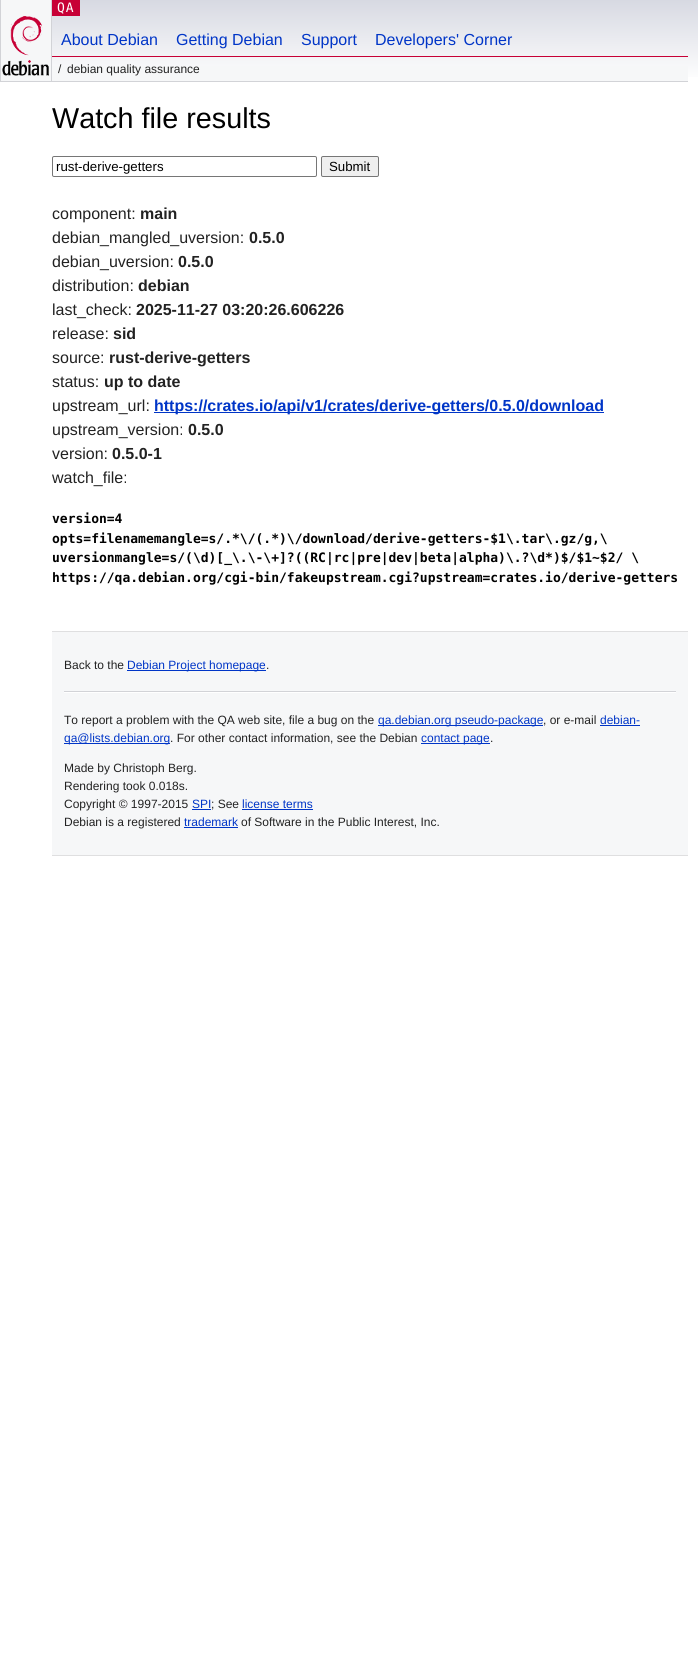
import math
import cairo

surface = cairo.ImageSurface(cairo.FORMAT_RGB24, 698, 1662)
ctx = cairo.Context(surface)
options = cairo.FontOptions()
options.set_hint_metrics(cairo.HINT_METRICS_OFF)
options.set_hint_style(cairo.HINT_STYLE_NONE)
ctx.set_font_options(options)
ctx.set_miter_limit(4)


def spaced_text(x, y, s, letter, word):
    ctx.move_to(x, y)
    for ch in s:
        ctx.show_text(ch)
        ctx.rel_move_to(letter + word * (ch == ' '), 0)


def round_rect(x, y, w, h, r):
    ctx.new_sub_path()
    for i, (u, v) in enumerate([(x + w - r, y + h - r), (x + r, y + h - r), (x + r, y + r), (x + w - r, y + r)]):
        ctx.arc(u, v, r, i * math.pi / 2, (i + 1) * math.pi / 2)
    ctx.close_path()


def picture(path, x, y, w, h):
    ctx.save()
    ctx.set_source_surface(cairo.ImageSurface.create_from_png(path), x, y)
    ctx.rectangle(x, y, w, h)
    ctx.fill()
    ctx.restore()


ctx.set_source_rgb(1, 1, 1)
ctx.paint()
gradient = cairo.LinearGradient(349, 0, 349, 82)
gradient.add_color_stop_rgba(0, 0.843, 0.851, 0.886, 1)
gradient.add_color_stop_rgba(1, 1, 1, 1, 1)
ctx.set_source(gradient)
ctx.rectangle(52, 0, 646, 77)
ctx.fill()
ctx.set_source_rgb(0.961, 0.965, 0.969)
ctx.rectangle(1, 0, 50, 81)
ctx.fill()
ctx.set_source_rgb(0.824, 0.827, 0.843)
ctx.rectangle(51, 0, 1, 82)
ctx.fill()
ctx.rectangle(0, 81, 52, 1)
ctx.fill()
ctx.rectangle(0, 0, 1, 82)
ctx.fill()
picture("img1.png", 2, 16, 47, 60)
ctx.set_source_rgb(0.78, 0, 0.212)
ctx.rectangle(52, 0, 28, 16)
ctx.fill()
ctx.select_font_face("DejaVu Sans Mono")
ctx.set_font_size(13)
ctx.set_source_rgb(1, 1, 1)
spaced_text(57, 12, "QA", 1, 0)
ctx.set_source_rgb(0.78, 0, 0.212)
ctx.rectangle(52, 56, 636, 1)
ctx.fill()
ctx.select_font_face("Liberation Sans")
ctx.set_font_size(16)
ctx.set_source_rgb(0, 0.208, 0.78)
ctx.move_to(61, 45)
ctx.show_text("About Debian")
ctx.move_to(176, 45)
ctx.show_text("Getting Debian")
ctx.move_to(301, 45)
ctx.show_text("Support")
ctx.move_to(375, 45)
ctx.show_text("Developers' Corner")
ctx.set_source_rgb(0.961, 0.965, 0.969)
ctx.rectangle(52, 66, 636, 15)
ctx.fill()
ctx.set_source_rgb(0.824, 0.827, 0.843)
ctx.rectangle(52, 81, 636, 1)
ctx.fill()
ctx.set_font_size(12)
ctx.set_source_rgb(0.133, 0.133, 0.133)
ctx.move_to(58, 73)
ctx.show_text("/")
ctx.move_to(67, 73)
ctx.show_text("debian quality assurance")
ctx.set_font_size(28.75)
ctx.set_source_rgb(0, 0, 0)
ctx.move_to(52, 128)
ctx.show_text("Watch file results")
round_rect(52.5, 156.5, 264, 20, 1.5)
ctx.set_source_rgb(0.463, 0.463, 0.463)
ctx.set_line_width(1)
ctx.stroke()
ctx.set_font_size(13.25)
ctx.set_source_rgb(0, 0, 0)
ctx.move_to(56, 171)
ctx.show_text("rust-derive-getters")
ctx.set_source_rgb(0.937, 0.937, 0.937)
round_rect(321.5, 156.5, 57, 20, 1.5)
ctx.fill_preserve()
ctx.set_source_rgb(0.463, 0.463, 0.463)
ctx.stroke()
ctx.set_source_rgb(0, 0, 0)
ctx.move_to(329, 171)
ctx.show_text("Submit")
ctx.set_font_size(16)
ctx.set_source_rgb(0.133, 0.133, 0.133)
ctx.move_to(52, 219)
ctx.show_text("component:")
ctx.select_font_face("Liberation Sans", cairo.FONT_SLANT_NORMAL, cairo.FONT_WEIGHT_BOLD)
ctx.move_to(140, 219)
ctx.show_text("main")
ctx.select_font_face("Liberation Sans")
ctx.move_to(52, 243)
ctx.show_text("debian_mangled_uversion:")
ctx.select_font_face("Liberation Sans", cairo.FONT_SLANT_NORMAL, cairo.FONT_WEIGHT_BOLD)
ctx.move_to(249, 243)
ctx.show_text("0.5.0")
ctx.select_font_face("Liberation Sans")
ctx.move_to(52, 267)
ctx.show_text("debian_uversion:")
ctx.select_font_face("Liberation Sans", cairo.FONT_SLANT_NORMAL, cairo.FONT_WEIGHT_BOLD)
ctx.move_to(178, 267)
ctx.show_text("0.5.0")
ctx.select_font_face("Liberation Sans")
ctx.move_to(52, 291)
ctx.show_text("distribution:")
ctx.select_font_face("Liberation Sans", cairo.FONT_SLANT_NORMAL, cairo.FONT_WEIGHT_BOLD)
ctx.move_to(138, 291)
ctx.show_text("debian")
ctx.select_font_face("Liberation Sans")
ctx.move_to(52, 315)
ctx.show_text("last_check:")
ctx.select_font_face("Liberation Sans", cairo.FONT_SLANT_NORMAL, cairo.FONT_WEIGHT_BOLD)
ctx.move_to(136, 315)
ctx.show_text("2025-11-27 03:20:26.606226")
ctx.select_font_face("Liberation Sans")
ctx.move_to(52, 339)
ctx.show_text("release:")
ctx.select_font_face("Liberation Sans", cairo.FONT_SLANT_NORMAL, cairo.FONT_WEIGHT_BOLD)
ctx.move_to(113, 339)
ctx.show_text("sid")
ctx.select_font_face("Liberation Sans")
ctx.move_to(52, 363)
ctx.show_text("source:")
ctx.select_font_face("Liberation Sans", cairo.FONT_SLANT_NORMAL, cairo.FONT_WEIGHT_BOLD)
ctx.move_to(109, 363)
ctx.show_text("rust-derive-getters")
ctx.select_font_face("Liberation Sans")
ctx.move_to(52, 387)
ctx.show_text("status:")
ctx.select_font_face("Liberation Sans", cairo.FONT_SLANT_NORMAL, cairo.FONT_WEIGHT_BOLD)
ctx.move_to(104, 387)
ctx.show_text("up to date")
ctx.select_font_face("Liberation Sans")
ctx.move_to(52, 411)
ctx.show_text("upstream_url:")
ctx.set_source_rgb(0, 0.208, 0.78)
ctx.rectangle(154, 412, 450, 1)
ctx.fill()
ctx.select_font_face("Liberation Sans", cairo.FONT_SLANT_NORMAL, cairo.FONT_WEIGHT_BOLD)
ctx.move_to(154, 411)
ctx.show_text("https://crates.io/api/v1/crates/derive-getters/0.5.0/download")
ctx.select_font_face("Liberation Sans")
ctx.set_source_rgb(0.133, 0.133, 0.133)
ctx.move_to(52, 435)
ctx.show_text("upstream_version:")
ctx.select_font_face("Liberation Sans", cairo.FONT_SLANT_NORMAL, cairo.FONT_WEIGHT_BOLD)
ctx.move_to(188, 435)
ctx.show_text("0.5.0")
ctx.select_font_face("Liberation Sans")
ctx.move_to(52, 459)
ctx.show_text("version:")
ctx.select_font_face("Liberation Sans", cairo.FONT_SLANT_NORMAL, cairo.FONT_WEIGHT_BOLD)
ctx.move_to(112, 459)
ctx.show_text("0.5.0-1")
ctx.select_font_face("Liberation Sans")
ctx.move_to(52, 483)
ctx.show_text("watch_file:")
ctx.select_font_face("DejaVu Sans Mono", cairo.FONT_SLANT_NORMAL, cairo.FONT_WEIGHT_BOLD)
ctx.set_font_size(13)
ctx.set_source_rgb(0, 0, 0)
ctx.move_to(52, 523)
ctx.show_text("version=4")
ctx.move_to(52, 543)
ctx.show_text("opts=filenamemangle=s/.*\\/(.*)\\/download/derive-getters-$1\\.tar\\.gz/g,\\")
ctx.move_to(52, 562)
ctx.show_text("uversionmangle=s/(\\d)[_\\.\\-\\+]?((RC|rc|pre|dev|beta|alpha)\\.?\\d*)$/$1~$2/ \\")
ctx.move_to(52, 582)
ctx.show_text("https://qa.debian.org/cgi-bin/fakeupstream.cgi?upstream=crates.io/derive-getters")
ctx.set_source_rgb(0.961, 0.965, 0.969)
ctx.rectangle(52, 632, 636, 223)
ctx.fill()
ctx.set_source_rgb(0.875, 0.875, 0.878)
ctx.rectangle(52, 631, 636, 1)
ctx.fill()
ctx.rectangle(52, 855, 636, 1)
ctx.fill()
ctx.select_font_face("Liberation Sans")
ctx.set_font_size(12)
ctx.set_source_rgb(0.133, 0.133, 0.133)
ctx.move_to(64, 669)
ctx.show_text("Back to the")
ctx.set_source_rgb(0, 0.208, 0.78)
ctx.rectangle(127, 670, 139, 1)
ctx.fill()
ctx.move_to(127, 669)
ctx.show_text("Debian Project homepage")
ctx.set_source_rgb(0.133, 0.133, 0.133)
ctx.move_to(266, 669)
ctx.show_text(".")
ctx.set_source_rgb(0.824, 0.827, 0.843)
ctx.rectangle(64, 691, 612, 1)
ctx.fill()
ctx.set_source_rgb(1, 1, 1)
ctx.rectangle(64, 692, 612, 1)
ctx.fill()
ctx.set_source_rgb(0.133, 0.133, 0.133)
ctx.move_to(64, 724)
ctx.show_text("To report a problem with the QA web site, file a bug on the")
ctx.set_source_rgb(0, 0.208, 0.78)
ctx.rectangle(378, 725, 165, 1)
ctx.fill()
ctx.move_to(378, 724)
ctx.show_text("qa.debian.org pseudo-package")
ctx.set_source_rgb(0.133, 0.133, 0.133)
ctx.move_to(543, 724)
ctx.show_text(", or e-mail")
ctx.set_source_rgb(0, 0.208, 0.78)
ctx.move_to(600, 724)
ctx.show_text("debian-")
ctx.rectangle(600, 725, 40, 1)
ctx.fill()
ctx.rectangle(64, 743, 106, 1)
ctx.fill()
ctx.move_to(64, 742)
ctx.show_text("qa@lists.debian.org")
ctx.set_source_rgb(0.133, 0.133, 0.133)
ctx.move_to(170, 742)
ctx.show_text(". For other contact information, see the Debian")
ctx.set_source_rgb(0, 0.208, 0.78)
ctx.rectangle(421, 743, 69, 1)
ctx.fill()
ctx.move_to(421, 742)
ctx.show_text("contact page")
ctx.set_source_rgb(0.133, 0.133, 0.133)
ctx.move_to(490, 742)
ctx.show_text(".")
ctx.move_to(64, 772)
ctx.show_text("Made by Christoph Berg.")
ctx.move_to(64, 790)
ctx.show_text("Rendering took 0.018s.")
ctx.move_to(64, 808)
ctx.show_text("Copyright © 1997-2015")
ctx.set_source_rgb(0, 0.208, 0.78)
ctx.move_to(192, 808)
ctx.show_text("SPI")
ctx.rectangle(192, 809, 19, 1)
ctx.fill()
ctx.set_source_rgb(0.133, 0.133, 0.133)
ctx.move_to(211, 808)
ctx.show_text("; See")
ctx.set_source_rgb(0, 0.208, 0.78)
ctx.move_to(242, 808)
ctx.show_text("license terms")
ctx.rectangle(242, 809, 71, 1)
ctx.fill()
ctx.set_source_rgb(0.133, 0.133, 0.133)
ctx.move_to(64, 826)
ctx.show_text("Debian is a registered")
ctx.set_source_rgb(0, 0.208, 0.78)
ctx.move_to(184, 826)
ctx.show_text("trademark")
ctx.rectangle(184, 827, 54, 1)
ctx.fill()
ctx.set_source_rgb(0.133, 0.133, 0.133)
ctx.move_to(241, 826)
ctx.show_text("of Software in the Public Interest, Inc.")
surface.write_to_png("page.png")
